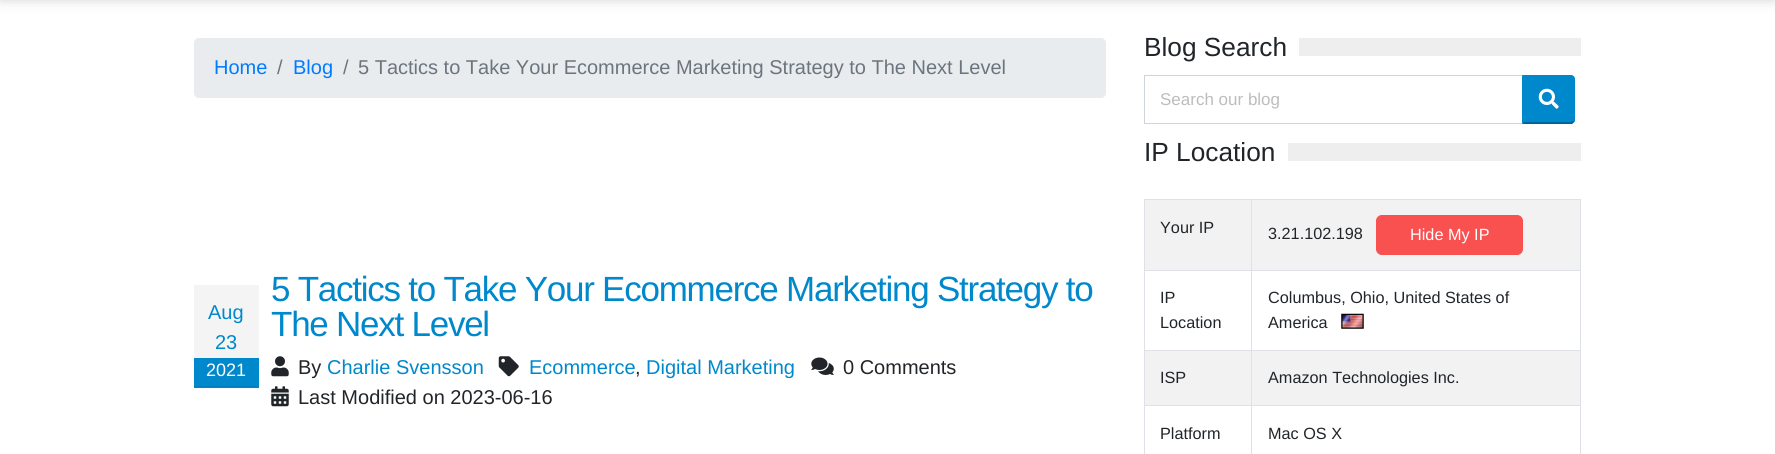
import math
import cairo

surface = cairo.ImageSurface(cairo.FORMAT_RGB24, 1775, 454)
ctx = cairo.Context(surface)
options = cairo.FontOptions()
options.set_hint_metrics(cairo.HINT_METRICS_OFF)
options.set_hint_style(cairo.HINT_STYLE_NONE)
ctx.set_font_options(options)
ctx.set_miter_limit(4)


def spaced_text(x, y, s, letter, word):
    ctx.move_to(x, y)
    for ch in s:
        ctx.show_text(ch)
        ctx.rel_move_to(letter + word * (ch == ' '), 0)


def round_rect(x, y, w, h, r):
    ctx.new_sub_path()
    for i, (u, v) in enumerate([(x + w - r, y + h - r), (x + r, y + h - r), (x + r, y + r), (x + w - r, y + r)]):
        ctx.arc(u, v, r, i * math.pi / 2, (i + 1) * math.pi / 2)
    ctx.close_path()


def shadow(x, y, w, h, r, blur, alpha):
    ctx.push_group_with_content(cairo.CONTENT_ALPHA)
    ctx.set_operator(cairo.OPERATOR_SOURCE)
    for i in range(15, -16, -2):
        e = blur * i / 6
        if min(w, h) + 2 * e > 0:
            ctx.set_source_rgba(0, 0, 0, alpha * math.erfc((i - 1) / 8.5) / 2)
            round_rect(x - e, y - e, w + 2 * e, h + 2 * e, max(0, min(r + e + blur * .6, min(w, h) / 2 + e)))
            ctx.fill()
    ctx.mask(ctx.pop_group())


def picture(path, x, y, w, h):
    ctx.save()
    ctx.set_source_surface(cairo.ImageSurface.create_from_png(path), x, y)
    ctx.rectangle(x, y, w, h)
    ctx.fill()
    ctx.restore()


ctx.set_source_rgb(1, 1, 1)
ctx.paint()
ctx.set_source_rgb(0.133, 0.133, 0.133)
shadow(0, -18, 1775, 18, 0, 6, 0.2)
ctx.set_source_rgb(0.914, 0.925, 0.937)
round_rect(194, 38, 912, 60, 5)
ctx.fill()
ctx.select_font_face("Liberation Sans")
ctx.set_font_size(20)
ctx.set_source_rgb(0, 0.482, 1)
ctx.move_to(214, 74)
ctx.show_text("Home")
ctx.set_source_rgb(0.424, 0.459, 0.49)
ctx.move_to(277, 74)
ctx.show_text("/")
ctx.set_source_rgb(0, 0.482, 1)
ctx.move_to(293, 74)
ctx.show_text("Blog")
ctx.set_source_rgb(0.424, 0.459, 0.49)
ctx.move_to(343, 74)
ctx.show_text("/")
ctx.move_to(358, 74)
ctx.show_text("5 Tactics to Take Your Ecommerce Marketing Strategy to The Next Level")
ctx.set_source_rgb(0.957, 0.957, 0.957)
ctx.rectangle(194, 285, 65, 73)
ctx.fill()
ctx.set_source_rgb(0, 0.533, 0.8)
ctx.move_to(208, 319)
ctx.show_text("Aug")
ctx.move_to(215, 349)
ctx.show_text("23")
ctx.rectangle(194, 358, 65, 30)
ctx.fill()
ctx.set_source_rgb(0, 0.494, 0.745)
ctx.rectangle(194, 386, 65, 1)
ctx.fill()
ctx.set_font_size(18)
ctx.set_source_rgb(1, 1, 1)
ctx.move_to(206, 376)
ctx.show_text("2021")
ctx.set_font_size(35)
ctx.set_source_rgb(0, 0.533, 0.8)
spaced_text(271, 301, "5 Tactics to Take Your Ecommerce Marketing Strategy to", -1.25, 0)
spaced_text(271, 336, "The Next Level", -1.25, 0)
picture("img1.png", 271, 356, 18, 21)
ctx.set_font_size(20)
ctx.set_source_rgb(0.129, 0.145, 0.161)
ctx.move_to(298, 374)
ctx.show_text("By")
ctx.set_source_rgb(0, 0.533, 0.8)
ctx.move_to(327, 374)
ctx.show_text("Charlie Svensson")
picture("img2.png", 498, 356, 21, 21)
ctx.move_to(529, 374)
ctx.show_text("Ecommerce")
ctx.set_source_rgb(0.129, 0.145, 0.161)
ctx.move_to(635, 374)
ctx.show_text(",")
ctx.set_source_rgb(0, 0.533, 0.8)
ctx.move_to(646, 374)
ctx.show_text("Digital Marketing")
picture("img3.png", 811, 357, 23, 18)
ctx.set_source_rgb(0.129, 0.145, 0.161)
ctx.move_to(843, 374)
ctx.show_text("0 Comments")
picture("img4.png", 271, 386, 18, 21)
ctx.move_to(298, 404)
ctx.show_text("Last Modified on 2023-06-16")
ctx.set_source_rgb(0.933, 0.933, 0.933)
ctx.rectangle(1299, 38, 282, 18)
ctx.fill()
ctx.set_font_size(26.25)
ctx.set_source_rgb(0.129, 0.145, 0.161)
ctx.move_to(1144, 56)
ctx.show_text("Blog Search")
ctx.rectangle(1144.5, 75.5, 379, 48)
ctx.set_source_rgb(0.808, 0.831, 0.855)
ctx.set_line_width(1)
ctx.stroke()
ctx.set_font_size(17)
ctx.set_source_rgb(0.741, 0.741, 0.741)
ctx.move_to(1160, 105)
ctx.show_text("Search our blog")
ctx.set_source_rgb(0, 0.533, 0.8)
ctx.new_path()
ctx.move_to(1523, 75)
ctx.line_to(1570, 75)
ctx.curve_to(1573, 75, 1575, 77, 1575, 80)
ctx.line_to(1575, 119)
ctx.curve_to(1575, 122, 1573, 124, 1570, 124)
ctx.line_to(1523, 124)
ctx.close_path()
ctx.fill()
ctx.new_path()
ctx.move_to(1524, 76)
ctx.line_to(1570, 76)
ctx.curve_to(1571, 76, 1572, 76, 1573, 77)
ctx.line_to(1574, 76)
ctx.curve_to(1573, 76, 1572, 75, 1570, 75)
ctx.line_to(1522, 75)
ctx.close_path()
ctx.fill()
ctx.new_path()
ctx.move_to(1575, 119)
ctx.line_to(1575, 80)
ctx.curve_to(1575, 78, 1574, 77, 1574, 76)
ctx.line_to(1573, 77)
ctx.line_to(1574, 80)
ctx.line_to(1574, 120)
ctx.line_to(1573, 121)
ctx.line_to(1574, 122)
ctx.curve_to(1575, 122, 1575, 120, 1575, 119)
ctx.close_path()
ctx.fill()
ctx.set_source_rgb(0, 0.4, 0.6)
ctx.new_path()
ctx.move_to(1574, 122)
ctx.line_to(1572, 124)
ctx.line_to(1522, 124)
ctx.line_to(1524, 122)
ctx.line_to(1570, 122)
ctx.line_to(1573, 121)
ctx.close_path()
ctx.fill()
ctx.set_source_rgb(0, 0.533, 0.8)
ctx.new_path()
ctx.move_to(1522, 124)
ctx.line_to(1524, 122)
ctx.line_to(1524, 76)
ctx.line_to(1522, 75)
ctx.close_path()
ctx.fill()
picture("img5.png", 1538, 88, 21, 21)
ctx.set_source_rgb(0.933, 0.933, 0.933)
ctx.rectangle(1288, 143, 293, 18)
ctx.fill()
ctx.set_font_size(26.25)
ctx.set_source_rgb(0.129, 0.145, 0.161)
ctx.move_to(1144, 161)
ctx.show_text("IP Location")
ctx.set_source_rgb(0.949, 0.949, 0.949)
ctx.rectangle(1145, 200, 435, 70)
ctx.fill()
ctx.set_source_rgb(0.871, 0.886, 0.902)
ctx.rectangle(1251, 199, 330, 1)
ctx.fill()
ctx.rectangle(1251, 270, 330, 1)
ctx.fill()
ctx.rectangle(1251, 350, 330, 1)
ctx.fill()
ctx.set_source_rgb(0.949, 0.949, 0.949)
ctx.rectangle(1145, 351, 435, 54)
ctx.fill()
ctx.set_source_rgb(0.871, 0.886, 0.902)
ctx.rectangle(1251, 405, 330, 1)
ctx.fill()
ctx.rectangle(1251, 405, 1, 49)
ctx.fill()
ctx.rectangle(1144, 405, 109, 1)
ctx.fill()
ctx.rectangle(1251, 350, 1, 56)
ctx.fill()
ctx.rectangle(1144, 350, 109, 1)
ctx.fill()
ctx.rectangle(1251, 270, 1, 81)
ctx.fill()
ctx.rectangle(1144, 270, 109, 1)
ctx.fill()
ctx.rectangle(1251, 199, 1, 72)
ctx.fill()
ctx.rectangle(1144, 199, 109, 1)
ctx.fill()
ctx.rectangle(1144, 405, 1, 49)
ctx.fill()
ctx.rectangle(1144, 350, 1, 56)
ctx.fill()
ctx.rectangle(1144, 270, 1, 81)
ctx.fill()
ctx.rectangle(1144, 199, 1, 72)
ctx.fill()
ctx.set_font_size(16.25)
ctx.set_source_rgb(0.129, 0.145, 0.161)
ctx.move_to(1160, 233)
ctx.show_text("Your IP")
ctx.set_source_rgb(0.871, 0.886, 0.902)
ctx.rectangle(1580, 405, 1, 49)
ctx.fill()
ctx.rectangle(1580, 350, 1, 56)
ctx.fill()
ctx.rectangle(1580, 270, 1, 81)
ctx.fill()
ctx.rectangle(1580, 199, 1, 72)
ctx.fill()
ctx.set_source_rgb(0.129, 0.145, 0.161)
ctx.move_to(1268, 239)
ctx.show_text("3.21.102.198")
ctx.set_source_rgb(0.973, 0.314, 0.314)
round_rect(1376.5, 215.5, 146, 39, 5.5)
ctx.fill_preserve()
ctx.stroke()
ctx.set_source_rgb(1, 1, 1)
ctx.move_to(1410, 240)
ctx.show_text("Hide My IP")
ctx.set_source_rgb(0.129, 0.145, 0.161)
ctx.move_to(1160, 303)
ctx.show_text("IP")
ctx.move_to(1160, 328)
ctx.show_text("Location")
ctx.move_to(1268, 303)
ctx.show_text("Columbus, Ohio, United States of")
ctx.move_to(1268, 328)
ctx.show_text("America")
picture("img6.png", 1341, 313, 23, 16)
ctx.move_to(1160, 383)
ctx.show_text("ISP")
ctx.move_to(1268, 383)
ctx.show_text("Amazon Technologies Inc.")
ctx.move_to(1160, 439)
ctx.show_text("Platform")
ctx.move_to(1268, 439)
ctx.show_text("Mac OS X")
surface.write_to_png("page.png")
